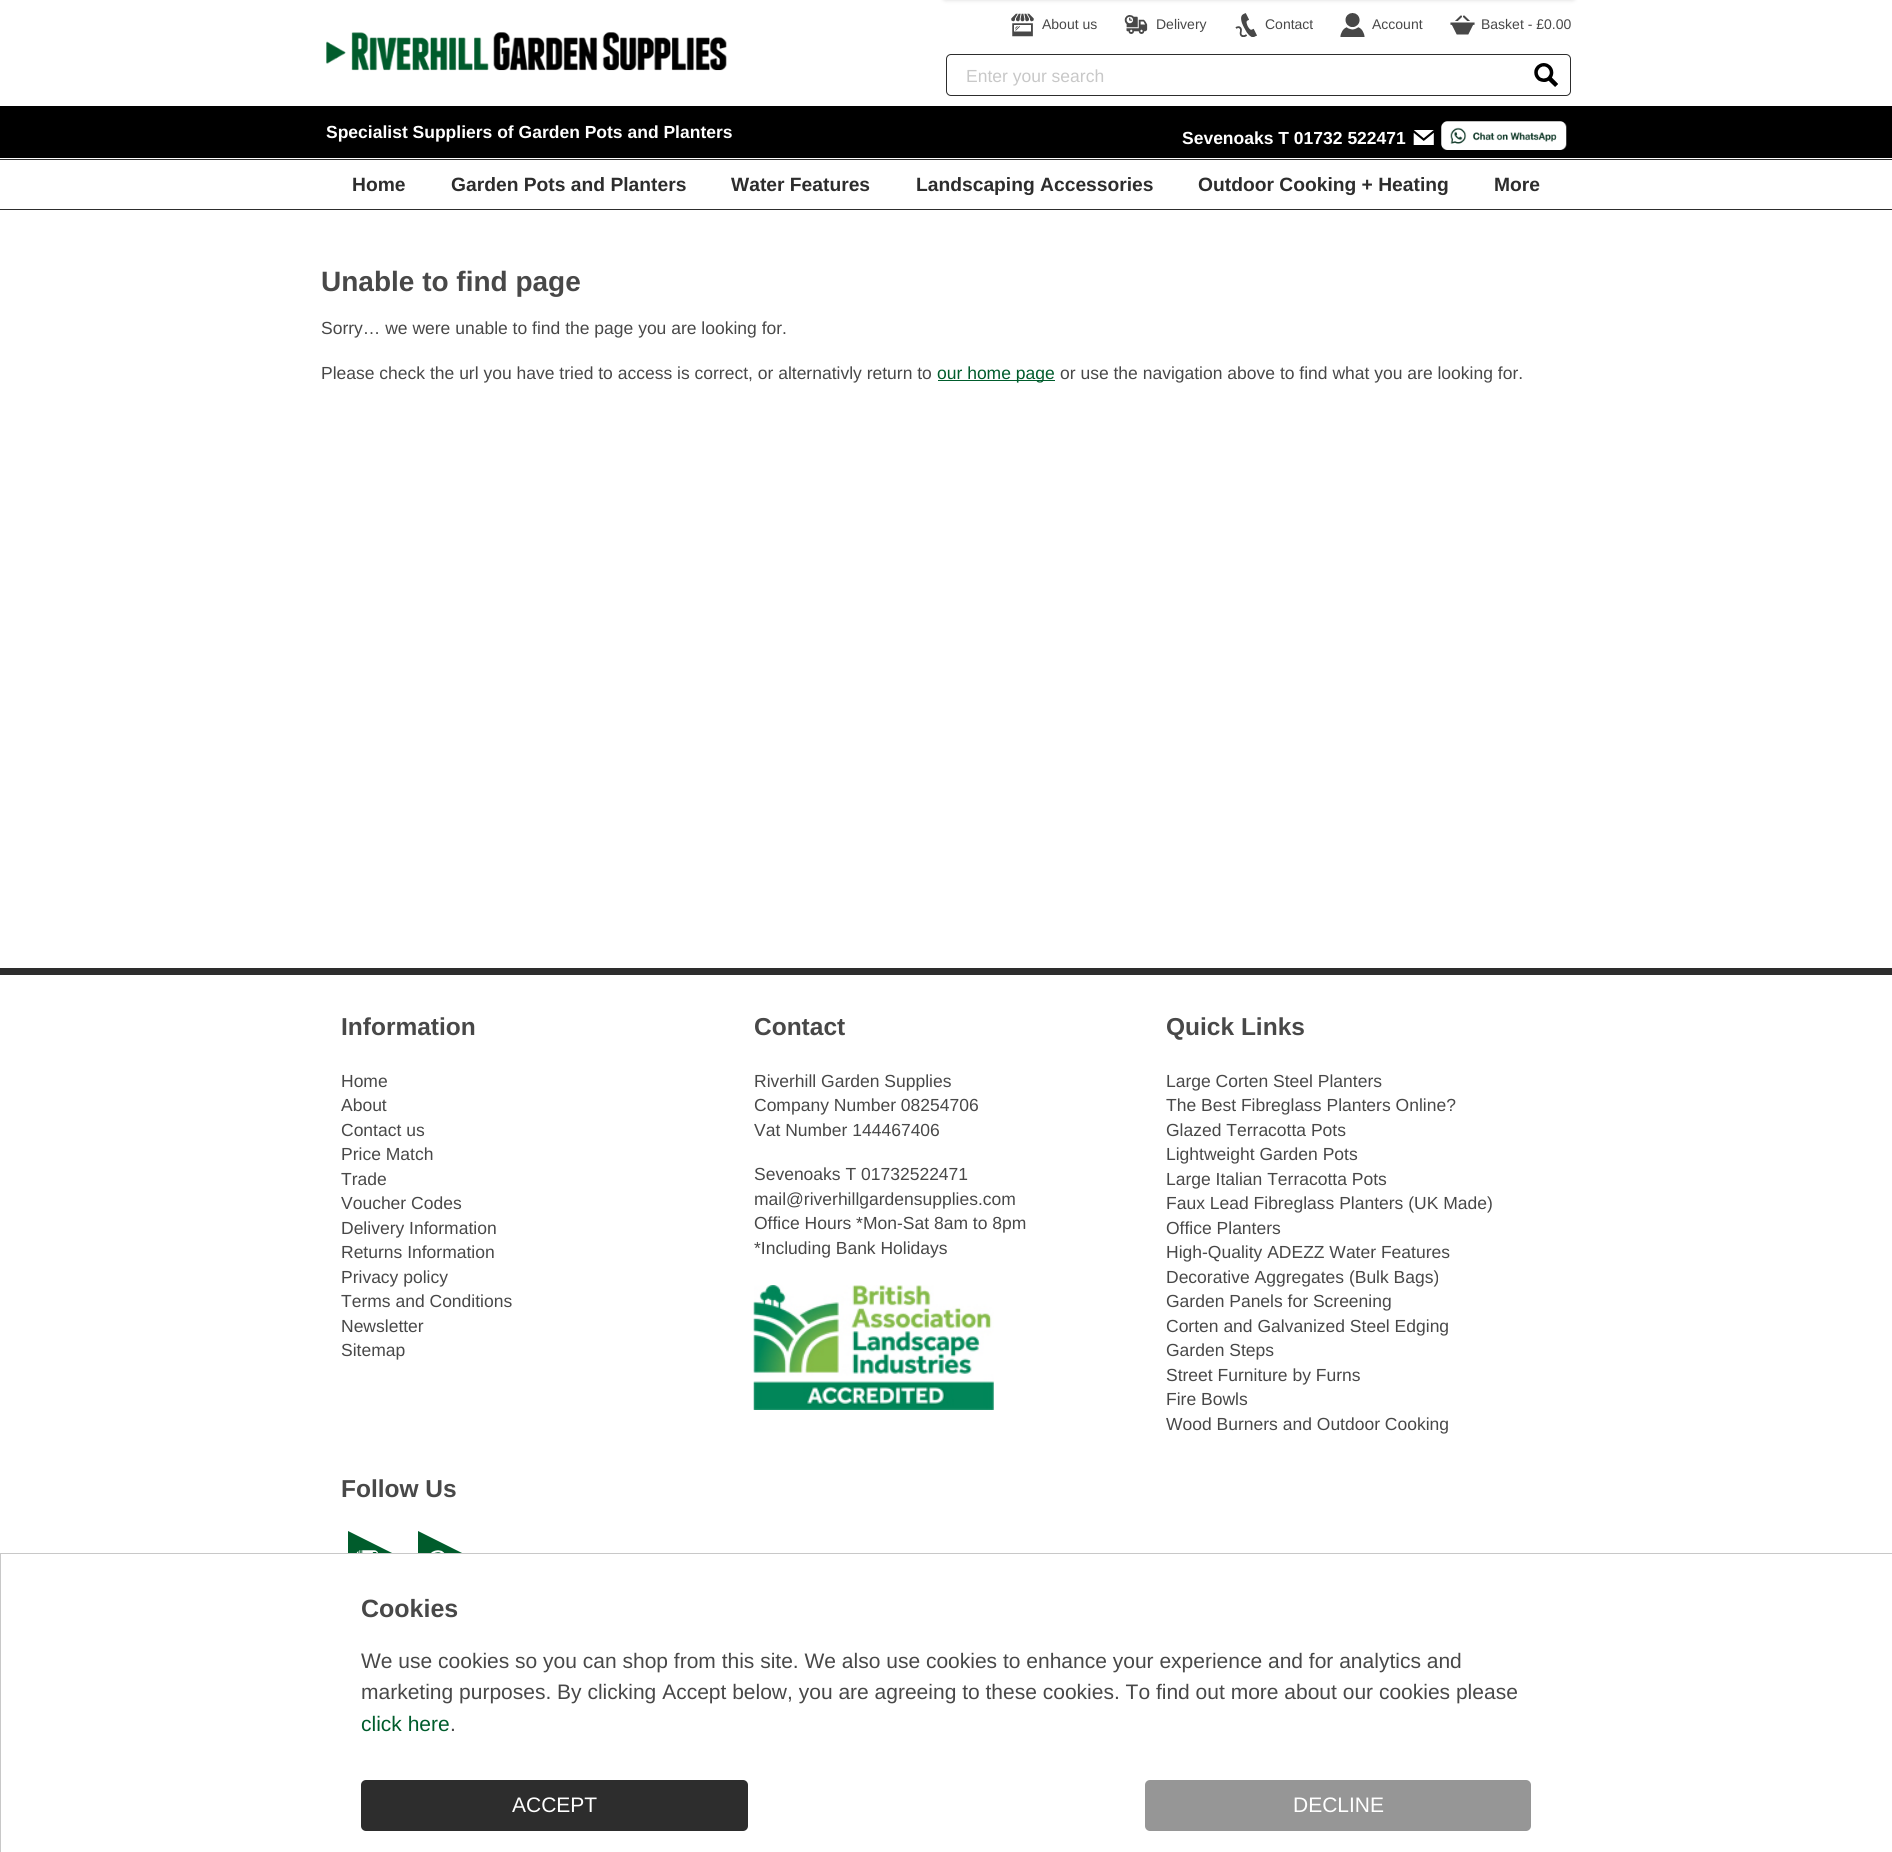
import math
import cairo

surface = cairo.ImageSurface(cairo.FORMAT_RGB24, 1892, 1852)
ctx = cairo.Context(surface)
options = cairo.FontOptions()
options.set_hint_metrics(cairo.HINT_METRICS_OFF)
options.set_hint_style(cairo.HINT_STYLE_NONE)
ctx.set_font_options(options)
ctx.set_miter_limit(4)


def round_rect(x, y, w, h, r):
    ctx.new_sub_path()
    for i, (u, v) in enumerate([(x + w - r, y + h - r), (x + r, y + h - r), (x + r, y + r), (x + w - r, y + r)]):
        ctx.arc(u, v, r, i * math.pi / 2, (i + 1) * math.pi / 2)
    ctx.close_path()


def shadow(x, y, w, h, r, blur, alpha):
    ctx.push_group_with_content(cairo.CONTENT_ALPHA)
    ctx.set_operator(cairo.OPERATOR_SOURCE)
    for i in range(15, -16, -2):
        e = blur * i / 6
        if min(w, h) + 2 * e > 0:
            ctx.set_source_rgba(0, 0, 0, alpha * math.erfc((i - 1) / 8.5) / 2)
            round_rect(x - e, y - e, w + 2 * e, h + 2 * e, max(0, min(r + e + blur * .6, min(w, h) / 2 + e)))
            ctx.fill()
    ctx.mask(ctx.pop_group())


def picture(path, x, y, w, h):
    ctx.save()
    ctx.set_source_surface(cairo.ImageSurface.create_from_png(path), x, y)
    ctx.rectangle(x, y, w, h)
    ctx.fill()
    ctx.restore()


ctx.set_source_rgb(1, 1, 1)
ctx.paint()
ctx.set_source_rgb(0, 0, 0)
shadow(945, -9, 628, 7, 0, 3, 0.3)
picture("img1.png", 1011, 13, 23, 24)
ctx.select_font_face("Liberation Sans")
ctx.set_font_size(14)
ctx.set_source_rgb(0.282, 0.282, 0.282)
ctx.move_to(1042, 29)
ctx.show_text("About us")
picture("img2.png", 1124, 15, 24, 19)
ctx.move_to(1156, 29)
ctx.show_text("Delivery")
picture("img3.png", 1235, 13, 22, 24)
ctx.move_to(1265, 29)
ctx.show_text("Contact")
picture("img4.png", 1340, 13, 25, 24)
ctx.move_to(1372, 29)
ctx.show_text("Account")
picture("img5.png", 1450, 15, 25, 20)
ctx.move_to(1481, 29)
ctx.show_text("Basket - £0.00")
picture("img6.png", 326, 32, 401, 39)
round_rect(946.5, 54.5, 624, 41, 4.5)
ctx.set_source_rgb(0.176, 0.176, 0.176)
ctx.set_line_width(1)
ctx.stroke()
ctx.set_font_size(17.5)
ctx.set_source_rgb(0.784, 0.784, 0.784)
ctx.move_to(966, 82)
ctx.show_text("Enter your search")
picture("img7.png", 1534, 63, 24, 24)
ctx.set_source_rgb(0, 0, 0)
ctx.rectangle(0, 106, 1892, 52)
ctx.fill()
ctx.select_font_face("Liberation Sans", cairo.FONT_SLANT_NORMAL, cairo.FONT_WEIGHT_BOLD)
ctx.set_source_rgb(1, 1, 1)
ctx.move_to(326, 138)
ctx.show_text("Specialist Suppliers of Garden Pots and Planters")
ctx.move_to(1182, 144)
ctx.show_text("Sevenoaks T 01732 522471")
picture("img8.png", 1413, 130, 21, 15)
picture("img9.png", 1441, 121, 126, 29)
ctx.rectangle(-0.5, 159.5, 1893, 50)
ctx.set_source_rgb(0.176, 0.176, 0.176)
ctx.stroke()
ctx.set_font_size(19.25)
ctx.move_to(352, 191)
ctx.show_text("Home")
ctx.move_to(451, 191)
ctx.show_text("Garden Pots and Planters")
ctx.move_to(731, 191)
ctx.show_text("Water Features")
ctx.move_to(916, 191)
ctx.show_text("Landscaping Accessories")
ctx.move_to(1198, 191)
ctx.show_text("Outdoor Cooking + Heating")
ctx.move_to(1494, 191)
ctx.show_text("More")
ctx.set_font_size(28)
ctx.set_source_rgb(0.282, 0.282, 0.282)
ctx.move_to(321, 291)
ctx.show_text("Unable to find page")
ctx.select_font_face("Liberation Sans")
ctx.set_font_size(17.5)
ctx.move_to(321, 334)
ctx.show_text("Sorry… we were unable to find the page you are looking for.")
ctx.move_to(321, 379)
ctx.show_text("Please check the url you have tried to access is correct, or alternativly return to")
ctx.set_source_rgb(0, 0.361, 0.173)
ctx.rectangle(938, 380, 117, 1)
ctx.fill()
ctx.move_to(937, 379)
ctx.show_text("our home page")
ctx.set_source_rgb(0.282, 0.282, 0.282)
ctx.move_to(1060, 379)
ctx.show_text("or use the navigation above to find what you are looking for.")
ctx.set_source_rgb(0.176, 0.176, 0.176)
ctx.new_path()
ctx.move_to(0, 968)
ctx.line_to(0, 975)
ctx.line_to(1892, 975)
ctx.line_to(1892, 1845)
ctx.line_to(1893, 1845)
ctx.line_to(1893, 968)
ctx.close_path()
ctx.fill()
ctx.select_font_face("Liberation Sans", cairo.FONT_SLANT_NORMAL, cairo.FONT_WEIGHT_BOLD)
ctx.set_font_size(24.5)
ctx.set_source_rgb(0.282, 0.282, 0.282)
ctx.move_to(341, 1035)
ctx.show_text("Information")
ctx.select_font_face("Liberation Sans")
ctx.set_font_size(17.5)
ctx.move_to(341, 1087)
ctx.show_text("Home")
ctx.move_to(341, 1111)
ctx.show_text("About")
ctx.move_to(341, 1136)
ctx.show_text("Contact us")
ctx.move_to(341, 1160)
ctx.show_text("Price Match")
ctx.move_to(341, 1185)
ctx.show_text("Trade")
ctx.move_to(341, 1209)
ctx.show_text("Voucher Codes")
ctx.move_to(341, 1234)
ctx.show_text("Delivery Information")
ctx.move_to(341, 1258)
ctx.show_text("Returns Information")
ctx.move_to(341, 1283)
ctx.show_text("Privacy policy")
ctx.move_to(341, 1307)
ctx.show_text("Terms and Conditions")
ctx.move_to(341, 1332)
ctx.show_text("Newsletter")
ctx.move_to(341, 1356)
ctx.show_text("Sitemap")
ctx.select_font_face("Liberation Sans", cairo.FONT_SLANT_NORMAL, cairo.FONT_WEIGHT_BOLD)
ctx.set_font_size(24.5)
ctx.move_to(754, 1035)
ctx.show_text("Contact")
ctx.select_font_face("Liberation Sans")
ctx.set_font_size(17.5)
ctx.move_to(754, 1087)
ctx.show_text("Riverhill Garden Supplies")
ctx.move_to(754, 1111)
ctx.show_text("Company Number 08254706")
ctx.move_to(754, 1136)
ctx.show_text("Vat Number 144467406")
ctx.move_to(754, 1180)
ctx.show_text("Sevenoaks T 01732522471")
ctx.move_to(754, 1205)
ctx.show_text("mail@riverhillgardensupplies.com")
ctx.move_to(754, 1229)
ctx.show_text("Office Hours *Mon-Sat 8am to 8pm")
ctx.move_to(754, 1254)
ctx.show_text("*Including Bank Holidays")
picture("img10.png", 753, 1285, 241, 125)
ctx.select_font_face("Liberation Sans", cairo.FONT_SLANT_NORMAL, cairo.FONT_WEIGHT_BOLD)
ctx.set_font_size(24.5)
ctx.move_to(1166, 1035)
ctx.show_text("Quick Links")
ctx.select_font_face("Liberation Sans")
ctx.set_font_size(17.5)
ctx.move_to(1166, 1087)
ctx.show_text("Large Corten Steel Planters")
ctx.move_to(1166, 1111)
ctx.show_text("The Best Fibreglass Planters Online?")
ctx.move_to(1166, 1136)
ctx.show_text("Glazed Terracotta Pots")
ctx.move_to(1166, 1160)
ctx.show_text("Lightweight Garden Pots")
ctx.move_to(1166, 1185)
ctx.show_text("Large Italian Terracotta Pots")
ctx.move_to(1166, 1209)
ctx.show_text("Faux Lead Fibreglass Planters (UK Made)")
ctx.move_to(1166, 1234)
ctx.show_text("Office Planters")
ctx.move_to(1166, 1258)
ctx.show_text("High-Quality ADEZZ Water Features")
ctx.move_to(1166, 1283)
ctx.show_text("Decorative Aggregates (Bulk Bags)")
ctx.move_to(1166, 1307)
ctx.show_text("Garden Panels for Screening")
ctx.move_to(1166, 1332)
ctx.show_text("Corten and Galvanized Steel Edging")
ctx.move_to(1166, 1356)
ctx.show_text("Garden Steps")
ctx.move_to(1166, 1381)
ctx.show_text("Street Furniture by Furns")
ctx.move_to(1166, 1405)
ctx.show_text("Fire Bowls")
ctx.move_to(1166, 1430)
ctx.show_text("Wood Burners and Outdoor Cooking")
ctx.select_font_face("Liberation Sans", cairo.FONT_SLANT_NORMAL, cairo.FONT_WEIGHT_BOLD)
ctx.set_font_size(24.5)
ctx.move_to(341, 1497)
ctx.show_text("Follow Us")
ctx.set_source_rgb(0, 0.361, 0.173)
ctx.new_path()
ctx.move_to(348, 1594)
ctx.line_to(348, 1531)
ctx.line_to(410, 1562)
ctx.close_path()
ctx.fill()
picture("img11.png", 356, 1550, 22, 3)
ctx.new_path()
ctx.move_to(418, 1594)
ctx.line_to(418, 1531)
ctx.line_to(480, 1562)
ctx.close_path()
ctx.fill()
picture("img12.png", 431, 1550, 14, 3)
ctx.set_source_rgb(1, 1, 1)
ctx.rectangle(348, 1554, 132, 40)
ctx.fill()
ctx.rectangle(0.5, 1553.5, 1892, 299)
ctx.set_source_rgb(0.784, 0.784, 0.784)
ctx.stroke()
ctx.set_font_size(25)
ctx.set_source_rgb(0.282, 0.282, 0.282)
ctx.move_to(361, 1617)
ctx.show_text("Cookies")
ctx.select_font_face("Liberation Sans")
ctx.set_font_size(21)
ctx.move_to(361, 1668)
ctx.show_text("We use cookies so you can shop from this site. We also use cookies to enhance your experience and for analytics and")
ctx.move_to(361, 1699)
ctx.show_text("marketing purposes. By clicking Accept below, you are agreeing to these cookies. To find out more about our cookies please")
ctx.set_source_rgb(0, 0.361, 0.173)
ctx.move_to(361, 1731)
ctx.show_text("click here")
ctx.set_source_rgb(0.282, 0.282, 0.282)
ctx.move_to(450, 1731)
ctx.show_text(".")
ctx.set_source_rgb(0.176, 0.176, 0.176)
round_rect(361, 1780, 387, 51, 5)
ctx.fill()
ctx.set_source_rgb(1, 1, 1)
ctx.move_to(512, 1812)
ctx.show_text("ACCEPT")
ctx.set_source_rgb(0.588, 0.588, 0.588)
round_rect(1145, 1780, 386, 51, 5)
ctx.fill()
ctx.set_source_rgb(1, 1, 1)
ctx.move_to(1293, 1812)
ctx.show_text("DECLINE")
surface.write_to_png("page.png")
